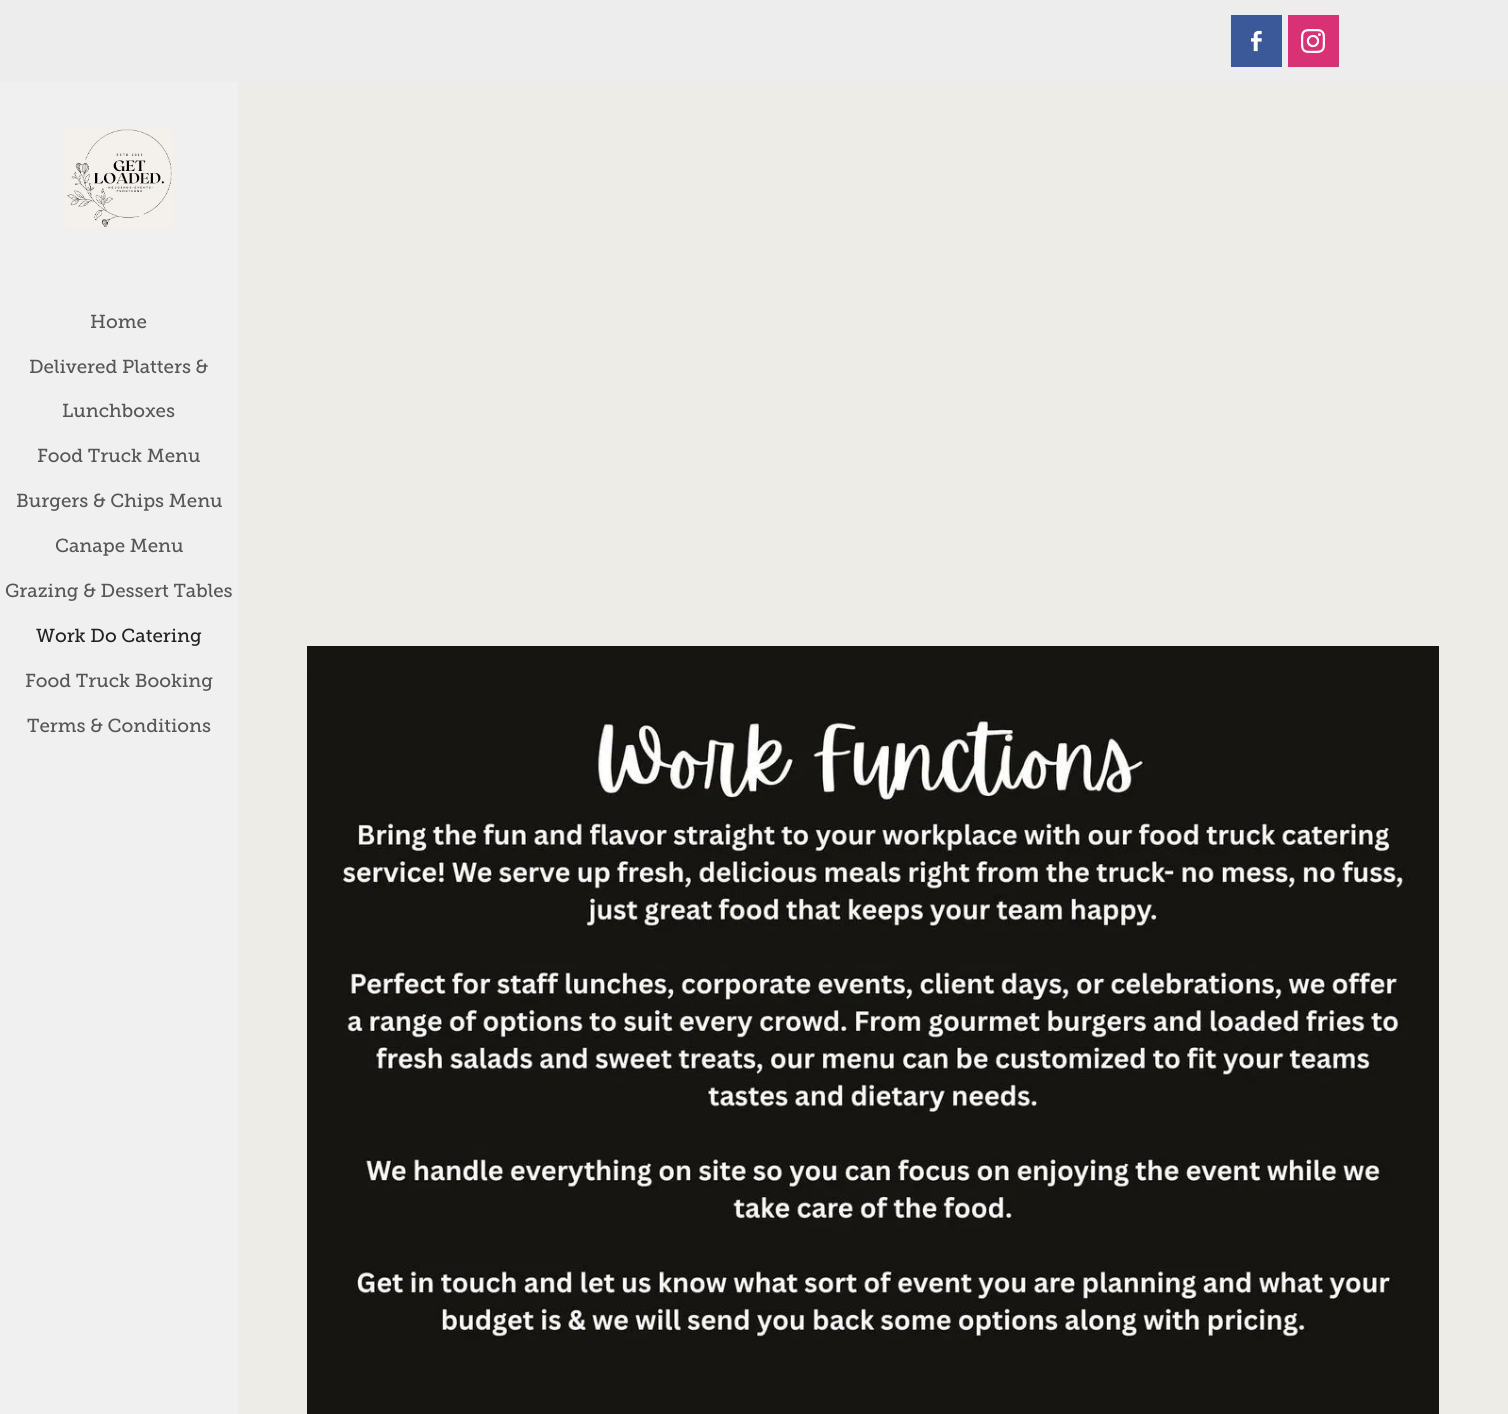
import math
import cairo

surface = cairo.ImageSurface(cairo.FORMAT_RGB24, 1508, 1414)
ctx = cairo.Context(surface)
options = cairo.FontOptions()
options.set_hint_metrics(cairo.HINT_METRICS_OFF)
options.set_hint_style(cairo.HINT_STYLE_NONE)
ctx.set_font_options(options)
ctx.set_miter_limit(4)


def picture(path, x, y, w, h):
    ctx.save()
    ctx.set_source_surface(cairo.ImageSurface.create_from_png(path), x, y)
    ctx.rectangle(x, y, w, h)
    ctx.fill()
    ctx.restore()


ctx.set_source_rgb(0.933, 0.925, 0.902)
ctx.paint()
ctx.set_source_rgb(0.929, 0.929, 0.929)
ctx.rectangle(0, 0, 1508, 82)
ctx.fill()
ctx.set_source_rgb(0.231, 0.349, 0.596)
ctx.rectangle(1231, 15, 51, 52)
ctx.fill()
picture("img1.png", 1251, 30, 11, 22)
ctx.set_source_rgb(0.851, 0.192, 0.459)
ctx.rectangle(1288, 15, 51, 52)
ctx.fill()
picture("img2.png", 1301, 29, 24, 24)
ctx.set_source_rgb(0.941, 0.941, 0.941)
ctx.rectangle(0, 82, 238, 1332)
ctx.fill()
picture("img3.png", 65, 129, 107, 99)
ctx.select_font_face("Museo Slab")
ctx.set_font_size(18.75)
ctx.set_source_rgb(0.337, 0.337, 0.337)
ctx.move_to(90, 328)
ctx.show_text("Home")
ctx.move_to(29, 373)
ctx.show_text("Delivered Platters &")
ctx.move_to(62, 417)
ctx.show_text("Lunchboxes")
ctx.move_to(37, 462)
ctx.show_text("Food Truck Menu")
ctx.move_to(16, 507)
ctx.show_text("Burgers & Chips Menu")
ctx.move_to(55, 552)
ctx.show_text("Canape Menu")
ctx.move_to(5, 597)
ctx.show_text("Grazing & Dessert Tables")
ctx.set_source_rgb(0.133, 0.133, 0.133)
ctx.move_to(36, 642)
ctx.show_text("Work Do Catering")
ctx.set_source_rgb(0.337, 0.337, 0.337)
ctx.move_to(25, 687)
ctx.show_text("Food Truck Booking")
ctx.move_to(27, 732)
ctx.show_text("Terms & Conditions")
picture("img4.png", 307, 646, 1132, 768)
surface.write_to_png("page.png")
